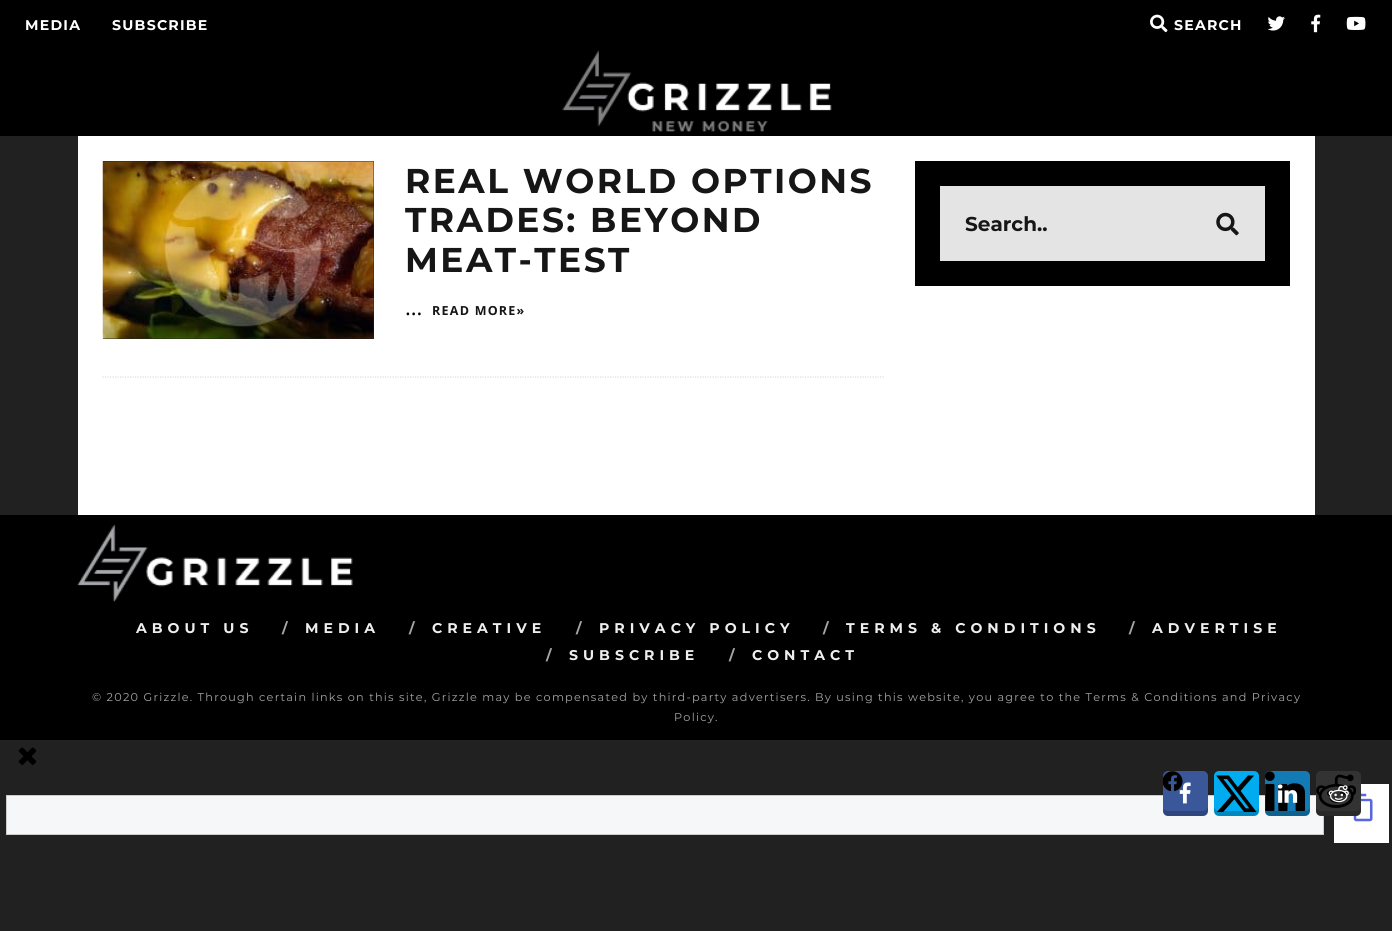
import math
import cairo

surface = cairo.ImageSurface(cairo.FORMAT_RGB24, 1392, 931)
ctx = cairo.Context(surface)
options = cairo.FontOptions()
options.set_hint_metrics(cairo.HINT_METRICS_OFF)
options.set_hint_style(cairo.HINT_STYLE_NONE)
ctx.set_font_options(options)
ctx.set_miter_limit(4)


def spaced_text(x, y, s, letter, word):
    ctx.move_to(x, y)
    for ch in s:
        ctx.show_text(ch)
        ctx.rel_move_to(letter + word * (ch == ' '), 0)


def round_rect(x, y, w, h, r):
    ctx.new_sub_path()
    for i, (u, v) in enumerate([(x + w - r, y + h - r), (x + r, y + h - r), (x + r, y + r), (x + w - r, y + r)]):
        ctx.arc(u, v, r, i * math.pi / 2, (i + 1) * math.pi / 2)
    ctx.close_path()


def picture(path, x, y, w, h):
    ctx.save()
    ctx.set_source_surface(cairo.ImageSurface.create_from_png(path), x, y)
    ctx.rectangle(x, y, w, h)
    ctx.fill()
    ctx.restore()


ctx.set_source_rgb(0.129, 0.129, 0.129)
ctx.paint()
ctx.set_source_rgb(0, 0, 0)
ctx.rectangle(0, 0, 1392, 136)
ctx.fill()
ctx.select_font_face("Montserrat", cairo.FONT_SLANT_NORMAL, cairo.FONT_WEIGHT_BOLD)
ctx.set_font_size(14.1)
ctx.set_source_rgb(1, 1, 1)
spaced_text(25, 30, "MEDIA", 1.25, 0)
spaced_text(112, 30, "SUBSCRIBE", 1.25, 0)
picture("img1.png", 1150, 14, 18, 19)
spaced_text(1174, 30, "SEARCH", 1.25, 0)
picture("img2.png", 1267, 16, 18, 15)
picture("img3.png", 1311, 14, 10, 19)
picture("img4.png", 1346, 16, 20, 14)
picture("img5.png", 562, 50, 270, 82)
ctx.rectangle(78, 136, 1237, 379)
ctx.fill()
ctx.new_path()
ctx.move_to(102.5, 377)
ctx.line_to(884, 377)
ctx.set_source_rgb(0.867, 0.867, 0.867)
ctx.set_line_width(1.2)
ctx.set_dash([1.25, 1.25])
ctx.stroke()
ctx.set_source_rgb(0.133, 0.133, 0.133)
ctx.rectangle(103, 161, 271, 178)
ctx.fill()
picture("img6.png", 102, 161, 272, 178)
ctx.set_font_size(34.4)
ctx.set_source_rgb(0.086, 0.086, 0.086)
spaced_text(405, 193, "REAL WORLD OPTIONS", 2.5, 0)
spaced_text(405, 232, "TRADES: BEYOND", 2.5, 0)
spaced_text(405, 272, "MEAT-TEST", 2.5, 0)
ctx.select_font_face("Open Sans")
ctx.set_font_size(22)
ctx.set_source_rgb(0, 0, 0)
ctx.move_to(405, 315)
ctx.show_text("...")
ctx.select_font_face("Open Sans", cairo.FONT_SLANT_NORMAL, cairo.FONT_WEIGHT_BOLD)
ctx.set_font_size(12.5)
ctx.set_source_rgb(0.086, 0.086, 0.086)
spaced_text(432, 315, "READ MORE»", 1.25, 0)
ctx.set_source_rgb(0, 0, 0)
ctx.rectangle(915, 161, 375, 125)
ctx.fill()
ctx.set_source_rgb(0.894, 0.894, 0.894)
ctx.rectangle(940, 186, 325, 75)
ctx.fill()
ctx.select_font_face("Montserrat", cairo.FONT_SLANT_NORMAL, cairo.FONT_WEIGHT_BOLD)
ctx.set_font_size(20)
ctx.set_source_rgb(0.086, 0.086, 0.086)
ctx.move_to(965, 231)
ctx.show_text("Search..")
picture("img7.png", 1216, 212, 23, 24)
ctx.set_source_rgb(0, 0, 0)
ctx.rectangle(0, 515, 1392, 225)
ctx.fill()
picture("img8.png", 77, 524, 276, 78)
ctx.set_font_size(14.1)
ctx.set_source_rgb(0.933, 0.933, 0.933)
spaced_text(136, 633, "ABOUT US", 5, 0)
ctx.set_source_rgb(0.651, 0.651, 0.651)
spaced_text(282, 633, "/", 5, 0)
ctx.set_source_rgb(0.933, 0.933, 0.933)
spaced_text(305, 633, "MEDIA", 5, 0)
ctx.set_source_rgb(0.651, 0.651, 0.651)
spaced_text(409, 633, "/", 5, 0)
ctx.set_source_rgb(0.933, 0.933, 0.933)
spaced_text(432, 633, "CREATIVE", 5, 0)
ctx.set_source_rgb(0.651, 0.651, 0.651)
spaced_text(576, 633, "/", 5, 0)
ctx.set_source_rgb(0.933, 0.933, 0.933)
spaced_text(599, 633, "PRIVACY POLICY", 5, 0)
ctx.set_source_rgb(0.651, 0.651, 0.651)
spaced_text(823, 633, "/", 5, 0)
ctx.set_source_rgb(0.933, 0.933, 0.933)
spaced_text(846, 633, "TERMS & CONDITIONS", 5, 0)
ctx.set_source_rgb(0.651, 0.651, 0.651)
spaced_text(1129, 633, "/", 5, 0)
ctx.set_source_rgb(0.933, 0.933, 0.933)
spaced_text(1152, 633, "ADVERTISE", 5, 0)
ctx.set_source_rgb(0.651, 0.651, 0.651)
spaced_text(546, 660, "/", 5, 0)
ctx.set_source_rgb(0.933, 0.933, 0.933)
spaced_text(569, 660, "SUBSCRIBE", 5, 0)
ctx.set_source_rgb(0.651, 0.651, 0.651)
spaced_text(729, 660, "/", 5, 0)
ctx.set_source_rgb(0.933, 0.933, 0.933)
spaced_text(752, 660, "CONTACT", 5, 0)
ctx.select_font_face("Montserrat")
ctx.set_font_size(11.25)
ctx.set_source_rgb(0.651, 0.651, 0.651)
spaced_text(92, 701, "© 2020 Grizzle. Through certain links on this site, Grizzle may be compensated by third-party advertisers. By using this website, you agree to the Terms & Conditions and Privacy", 1.25, 0)
spaced_text(674, 721, "Policy.", 1.25, 0)
picture("img9.png", 18, 747, 19, 18)
ctx.set_source_rgb(0.961, 0.965, 0.969)
ctx.rectangle(6.5, 795.5, 1317, 39)
ctx.fill_preserve()
ctx.set_source_rgb(0.8, 0.8, 0.8)
ctx.set_line_width(1)
ctx.set_dash([])
ctx.stroke()
ctx.set_source_rgb(1, 1, 1)
ctx.rectangle(1334, 784, 55, 59)
ctx.fill()
picture("img10.png", 1353, 793, 20, 29)
ctx.set_source_rgb(0.227, 0.341, 0.604)
round_rect(1163, 771, 45, 45, 5)
ctx.fill()
ctx.set_source_rgba(0, 0, 0, 0.2)
ctx.new_path()
ctx.move_to(1163, 809)
ctx.curve_to(1163, 817, 1167, 816, 1174, 816)
ctx.line_to(1197, 816)
ctx.curve_to(1207, 816, 1208, 816, 1208, 806)
ctx.curve_to(1208, 809, 1205, 811, 1202, 811)
ctx.line_to(1168, 811)
ctx.curve_to(1166, 811, 1164, 810, 1163, 809)
ctx.close_path()
ctx.fill()
picture("img11.png", 1163, 771, 20, 20)
picture("img12.png", 1179, 782, 12, 22)
ctx.set_source_rgb(0, 0.671, 0.941)
round_rect(1214, 771, 45, 45, 5)
ctx.fill()
ctx.set_source_rgba(0, 0, 0, 0.2)
ctx.new_path()
ctx.move_to(1214, 806)
ctx.curve_to(1214, 816, 1215, 816, 1225, 816)
ctx.line_to(1248, 816)
ctx.curve_to(1258, 816, 1259, 816, 1259, 806)
ctx.curve_to(1259, 809, 1257, 811, 1254, 811)
ctx.line_to(1219, 811)
ctx.curve_to(1216, 811, 1214, 809, 1214, 806)
ctx.close_path()
ctx.fill()
picture("img13.png", 1216, 775, 41, 37)
ctx.set_source_rgb(0.071, 0.482, 0.714)
round_rect(1265, 771, 45, 45, 5)
ctx.fill()
ctx.set_source_rgba(0, 0, 0, 0.2)
ctx.new_path()
ctx.move_to(1265, 806)
ctx.curve_to(1265, 816, 1266, 816, 1276, 816)
ctx.line_to(1299, 816)
ctx.curve_to(1309, 816, 1310, 816, 1310, 806)
ctx.curve_to(1310, 809, 1308, 811, 1305, 811)
ctx.line_to(1270, 811)
ctx.curve_to(1267, 811, 1265, 809, 1265, 806)
ctx.close_path()
ctx.fill()
picture("img14.png", 1265, 771, 40, 40)
picture("img15.png", 1277, 784, 21, 19)
ctx.set_source_rgb(0.2, 0.2, 0.2)
round_rect(1316, 771, 45, 45, 5)
ctx.fill()
ctx.set_source_rgba(0, 0, 0, 0.2)
ctx.new_path()
ctx.move_to(1316, 806)
ctx.curve_to(1316, 816, 1317, 816, 1327, 816)
ctx.line_to(1350, 816)
ctx.curve_to(1360, 816, 1361, 816, 1361, 806)
ctx.curve_to(1361, 809, 1359, 811, 1356, 811)
ctx.line_to(1321, 811)
ctx.curve_to(1318, 811, 1316, 809, 1316, 806)
ctx.close_path()
ctx.fill()
picture("img16.png", 1316, 774, 40, 34)
picture("img17.png", 1328, 785, 21, 18)
surface.write_to_png("page.png")
